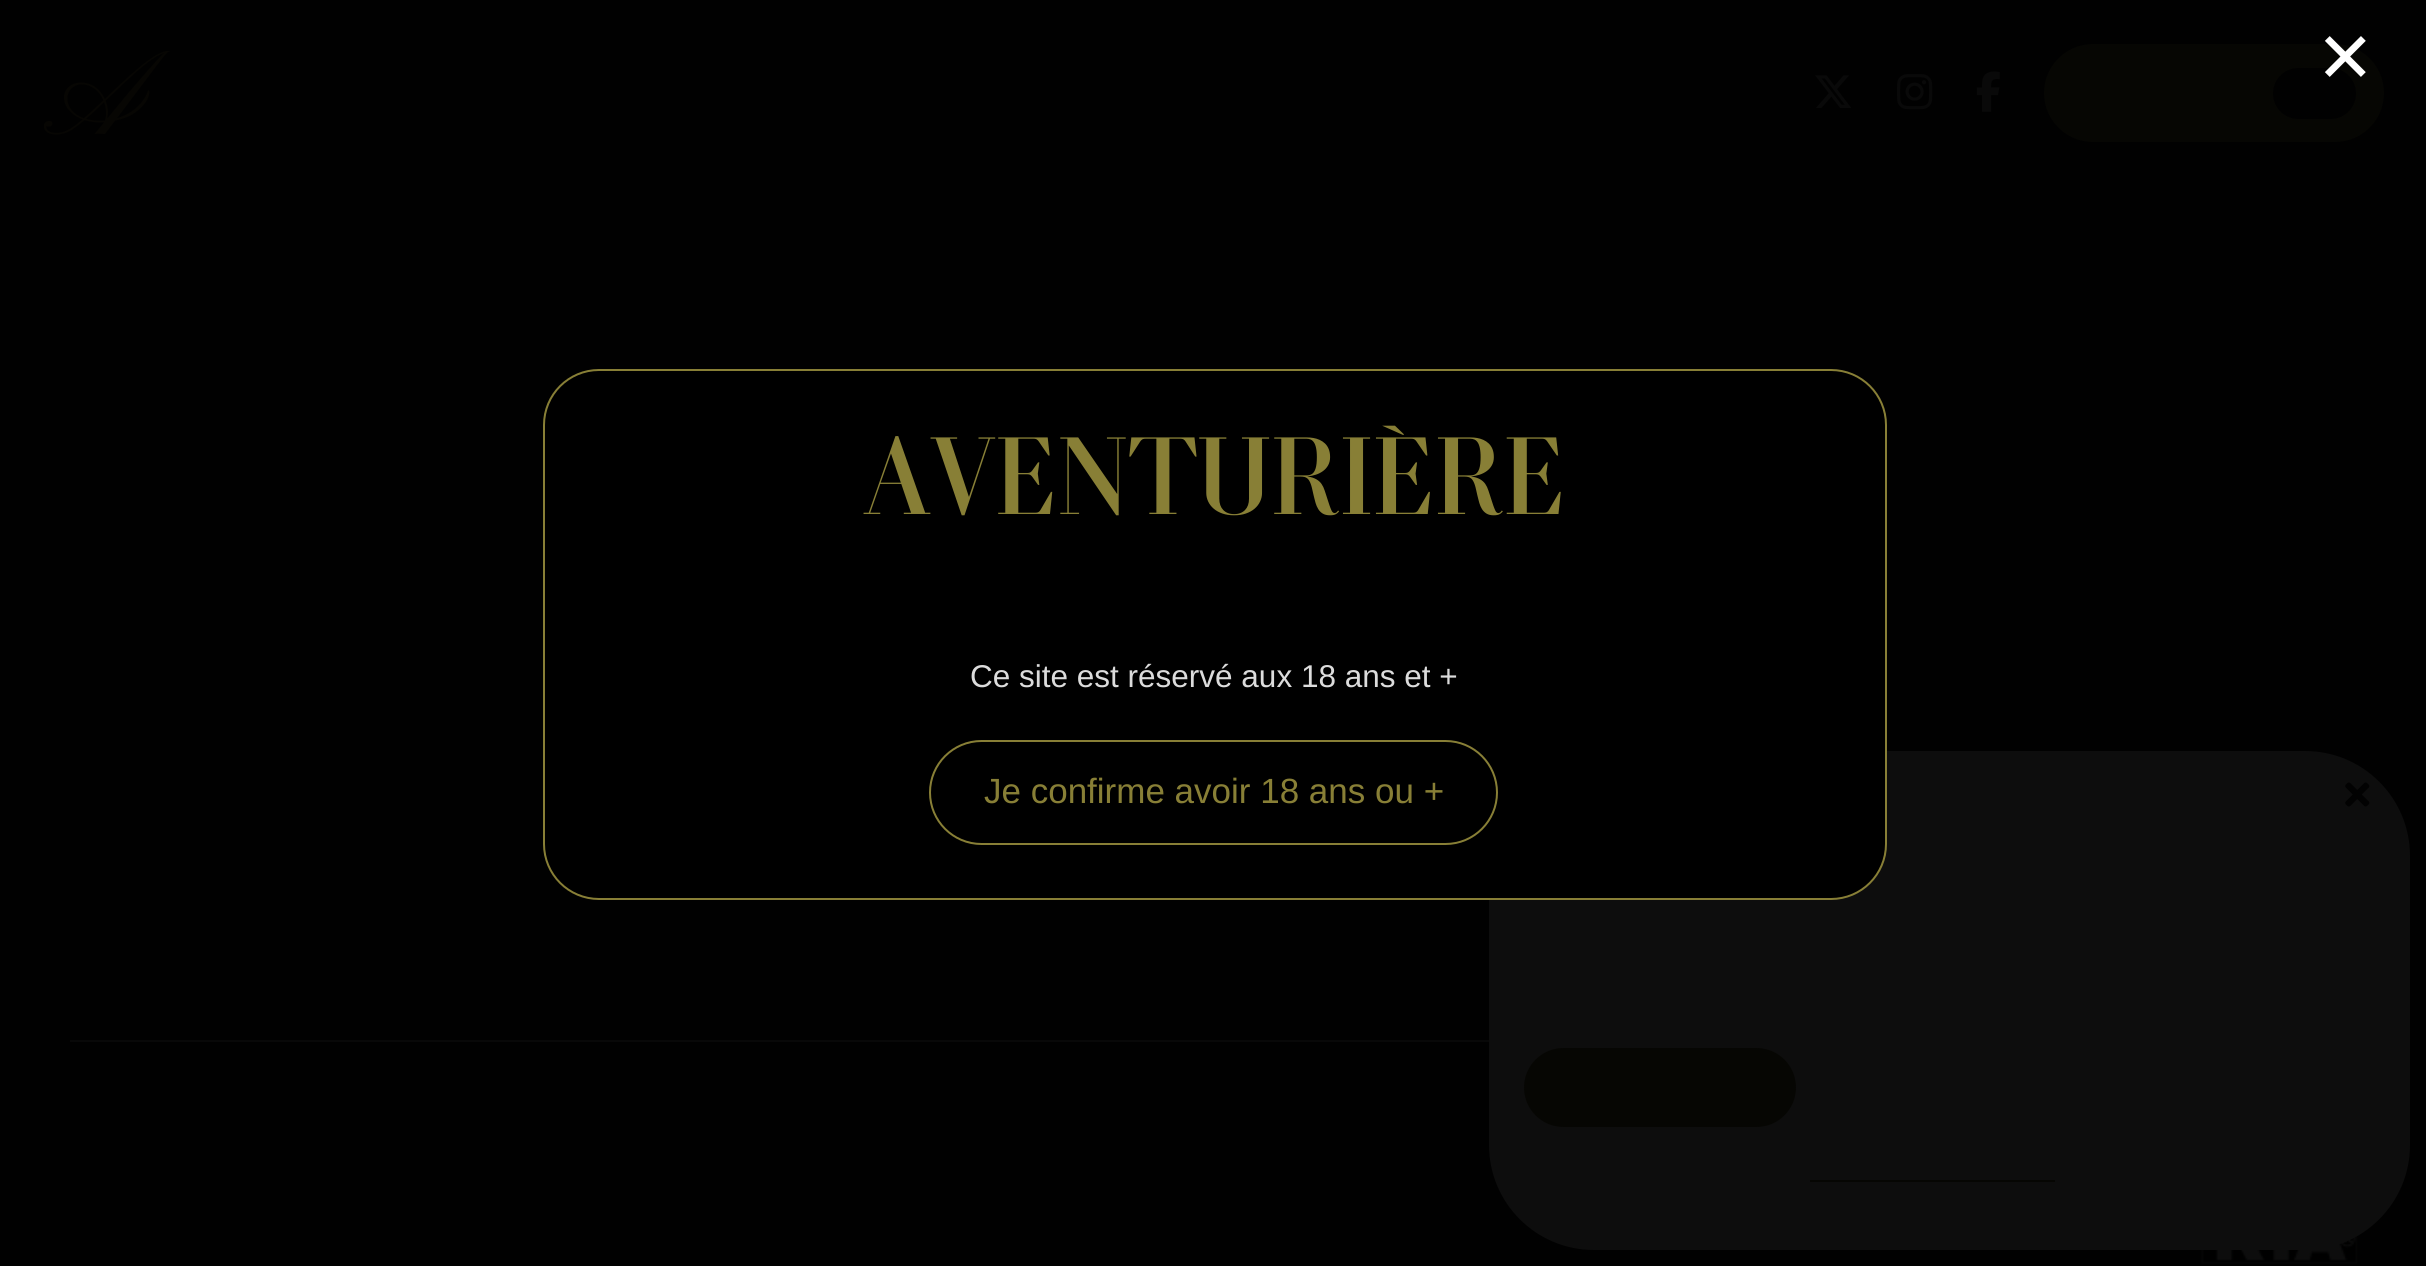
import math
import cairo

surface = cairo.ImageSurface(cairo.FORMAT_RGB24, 2426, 1266)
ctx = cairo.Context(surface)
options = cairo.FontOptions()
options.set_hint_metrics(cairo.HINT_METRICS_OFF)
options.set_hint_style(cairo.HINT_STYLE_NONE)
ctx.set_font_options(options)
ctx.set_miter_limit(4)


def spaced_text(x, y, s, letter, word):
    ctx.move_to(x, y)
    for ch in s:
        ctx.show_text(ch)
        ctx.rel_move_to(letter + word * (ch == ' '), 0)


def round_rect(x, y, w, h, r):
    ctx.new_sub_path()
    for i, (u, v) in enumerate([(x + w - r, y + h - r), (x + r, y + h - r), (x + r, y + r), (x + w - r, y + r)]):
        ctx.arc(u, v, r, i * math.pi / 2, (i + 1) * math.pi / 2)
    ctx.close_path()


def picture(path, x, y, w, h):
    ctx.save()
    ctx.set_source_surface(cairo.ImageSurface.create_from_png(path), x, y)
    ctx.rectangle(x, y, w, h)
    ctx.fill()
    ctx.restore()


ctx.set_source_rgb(0.004, 0.004, 0.004)
ctx.paint()
ctx.set_source_rgb(0.027, 0.024, 0.012)
round_rect(2044, 44, 340, 98, 49)
ctx.fill()
ctx.set_source_rgb(0.004, 0.004, 0.004)
round_rect(2273, 68, 83, 51, 25.5)
ctx.fill()
ctx.select_font_face("DejaVu Sans")
ctx.set_font_size(70)
ctx.set_source_rgb(1, 1, 1)
ctx.move_to(2316, 82)
ctx.show_text("✕")
picture("img6.png", 2201, 1235, 157, 29)
ctx.set_source_rgb(0.051, 0.051, 0.051)
round_rect(1489, 751, 921, 499, 105)
ctx.fill()
ctx.set_source_rgb(0, 0, 0)
round_rect(544, 370, 1342, 529, 55)
ctx.fill_preserve()
ctx.set_source_rgb(0.533, 0.498, 0.212)
ctx.stroke()
ctx.select_font_face("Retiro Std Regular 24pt")
ctx.set_font_size(108.5)
spaced_text(863, 514, "AVENTURIÈRE", -1, 0)
ctx.select_font_face("Liberation Sans")
ctx.set_font_size(31.5)
ctx.set_source_rgb(0.863, 0.863, 0.863)
ctx.move_to(970, 687)
ctx.show_text("Ce site est réservé aux 18 ans et +")
round_rect(930, 741, 567, 103, 51.5)
ctx.set_source_rgb(0.533, 0.498, 0.212)
ctx.stroke()
ctx.set_font_size(35)
ctx.move_to(984, 803)
ctx.show_text("Je confirme avoir 18 ans ou +")
picture("img1.png", 44, 51, 126, 84)
picture("img2.png", 1815, 75, 37, 33)
picture("img3.png", 1897, 74, 36, 36)
picture("img4.png", 1976, 71, 24, 41)
picture("img5.png", 2345, 782, 25, 25)
ctx.set_source_rgb(0.027, 0.024, 0.012)
round_rect(1525, 1049, 270, 77, 38.5)
ctx.fill_preserve()
ctx.stroke()
ctx.rectangle(1810, 1180, 245, 2)
ctx.fill()
ctx.set_source_rgb(0.035, 0.035, 0.035)
ctx.rectangle(70, 1040, 1419, 2)
ctx.fill()
surface.write_to_png("page.png")
